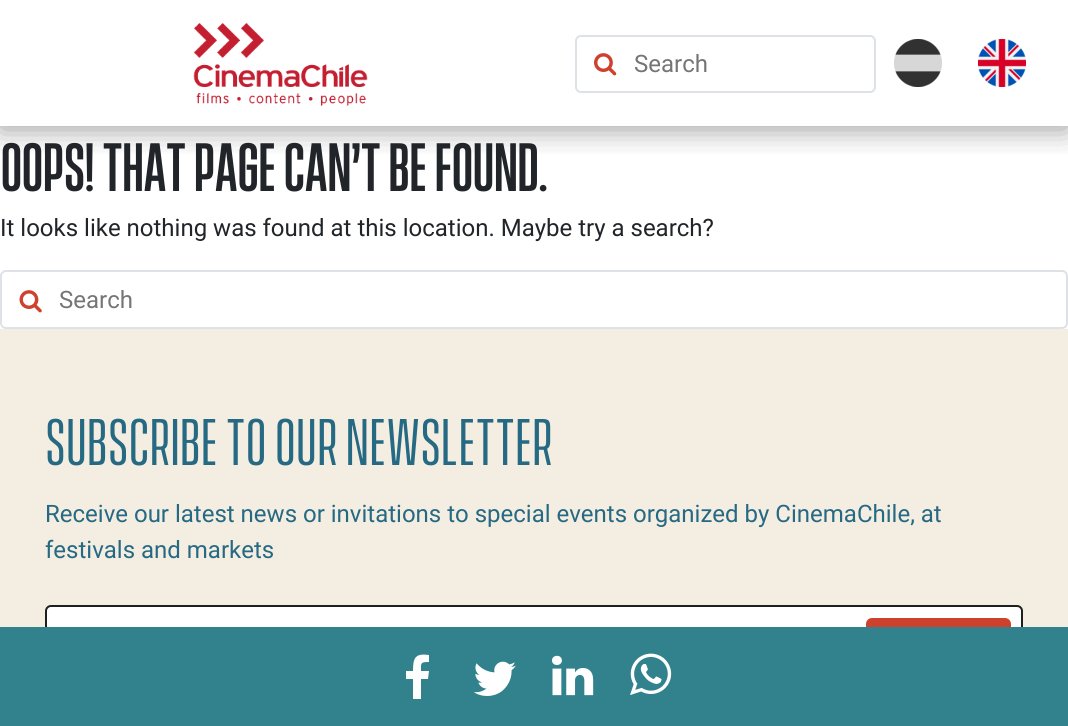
import math
import cairo

surface = cairo.ImageSurface(cairo.FORMAT_RGB24, 1068, 726)
ctx = cairo.Context(surface)
options = cairo.FontOptions()
options.set_hint_metrics(cairo.HINT_METRICS_OFF)
options.set_hint_style(cairo.HINT_STYLE_NONE)
ctx.set_font_options(options)
ctx.set_miter_limit(4)


def round_rect(x, y, w, h, r):
    ctx.new_sub_path()
    for i, (u, v) in enumerate([(x + w - r, y + h - r), (x + r, y + h - r), (x + r, y + r), (x + w - r, y + r)]):
        ctx.arc(u, v, r, i * math.pi / 2, (i + 1) * math.pi / 2)
    ctx.close_path()


def shadow(x, y, w, h, r, blur, alpha):
    ctx.push_group_with_content(cairo.CONTENT_ALPHA)
    ctx.set_operator(cairo.OPERATOR_SOURCE)
    for i in range(15, -16, -2):
        e = blur * i / 6
        if min(w, h) + 2 * e > 0:
            ctx.set_source_rgba(0, 0, 0, alpha * math.erfc((i - 1) / 8.5) / 2)
            round_rect(x - e, y - e, w + 2 * e, h + 2 * e, max(0, min(r + e + blur * .6, min(w, h) / 2 + e)))
            ctx.fill()
    ctx.mask(ctx.pop_group())


def picture(path, x, y, w, h):
    ctx.save()
    ctx.set_source_surface(cairo.ImageSurface.create_from_png(path), x, y)
    ctx.rectangle(x, y, w, h)
    ctx.fill()
    ctx.restore()


ctx.set_source_rgb(1, 1, 1)
ctx.paint()
ctx.save()
ctx.rectangle(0, 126, 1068, 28)
ctx.clip()
ctx.set_source_rgb(0, 0, 0)
shadow(0, 3, 1068, 126, 0, 15, 0.4)
ctx.restore()
picture("img1.png", 193, 22, 175, 84)
round_rect(576, 36, 299, 56, 5)
ctx.set_source_rgb(0.871, 0.886, 0.902)
ctx.stroke()
picture("img2.png", 594, 53, 23, 23)
ctx.select_font_face("Roboto")
ctx.set_font_size(24)
ctx.set_source_rgb(0.459, 0.459, 0.459)
ctx.move_to(634, 72)
ctx.show_text("Search")
picture("img3.png", 894, 39, 48, 48)
picture("img4.png", 978, 39, 48, 48)
ctx.select_font_face("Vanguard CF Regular", cairo.FONT_SLANT_NORMAL, cairo.FONT_WEIGHT_BOLD)
ctx.set_font_size(60)
ctx.set_source_rgb(0.129, 0.145, 0.161)
ctx.move_to(0, 191)
ctx.show_text("Oops! That page can’t be found.")
ctx.select_font_face("Roboto")
ctx.set_font_size(24)
ctx.move_to(0, 236)
ctx.show_text("It looks like nothing was found at this location. Maybe try a search?")
round_rect(1, 271, 1066, 57, 5)
ctx.set_source_rgb(0.871, 0.886, 0.902)
ctx.stroke()
picture("img5.png", 19, 290, 23, 23)
ctx.set_source_rgb(0.459, 0.459, 0.459)
ctx.move_to(59, 308)
ctx.show_text("Search")
ctx.set_source_rgb(0.957, 0.929, 0.886)
ctx.rectangle(0, 329, 1068, 298)
ctx.fill()
ctx.select_font_face("Vanguard CF Regular")
ctx.set_font_size(60)
ctx.set_source_rgb(0.149, 0.412, 0.514)
ctx.move_to(45, 465)
ctx.show_text("Subscribe to our newsletter")
ctx.select_font_face("Roboto")
ctx.set_font_size(24)
ctx.move_to(45, 522)
ctx.show_text("Receive our latest news or invitations to special events organized by CinemaChile, at")
ctx.move_to(45, 558)
ctx.show_text("festivals and markets")
ctx.set_source_rgb(1, 1, 1)
round_rect(46, 606, 976, 82, 5)
ctx.fill_preserve()
ctx.set_source_rgb(0.122, 0.122, 0.122)
ctx.stroke()
ctx.set_source_rgb(0.808, 0.255, 0.176)
round_rect(867, 619, 143, 55, 5)
ctx.fill_preserve()
ctx.stroke()
ctx.set_source_rgb(0.192, 0.51, 0.553)
ctx.rectangle(0, 627, 1068, 99)
ctx.fill()
ctx.set_source_rgb(1, 1, 1)
ctx.new_path()
ctx.move_to(429, 655)
ctx.line_to(429, 662)
ctx.curve_to(420, 662, 421, 663, 421, 671)
ctx.line_to(429, 671)
ctx.line_to(428, 679)
ctx.line_to(421, 679)
ctx.line_to(421, 699)
ctx.line_to(413, 699)
ctx.line_to(413, 679)
ctx.line_to(406, 679)
ctx.line_to(406, 671)
ctx.line_to(413, 671)
ctx.curve_to(413, 658, 415, 653, 429, 655)
ctx.close_path()
ctx.fill()
picture("img6.png", 473, 661, 43, 35)
picture("img7.png", 552, 655, 42, 41)
picture("img8.png", 630, 653, 42, 42)
surface.write_to_png("page.png")
